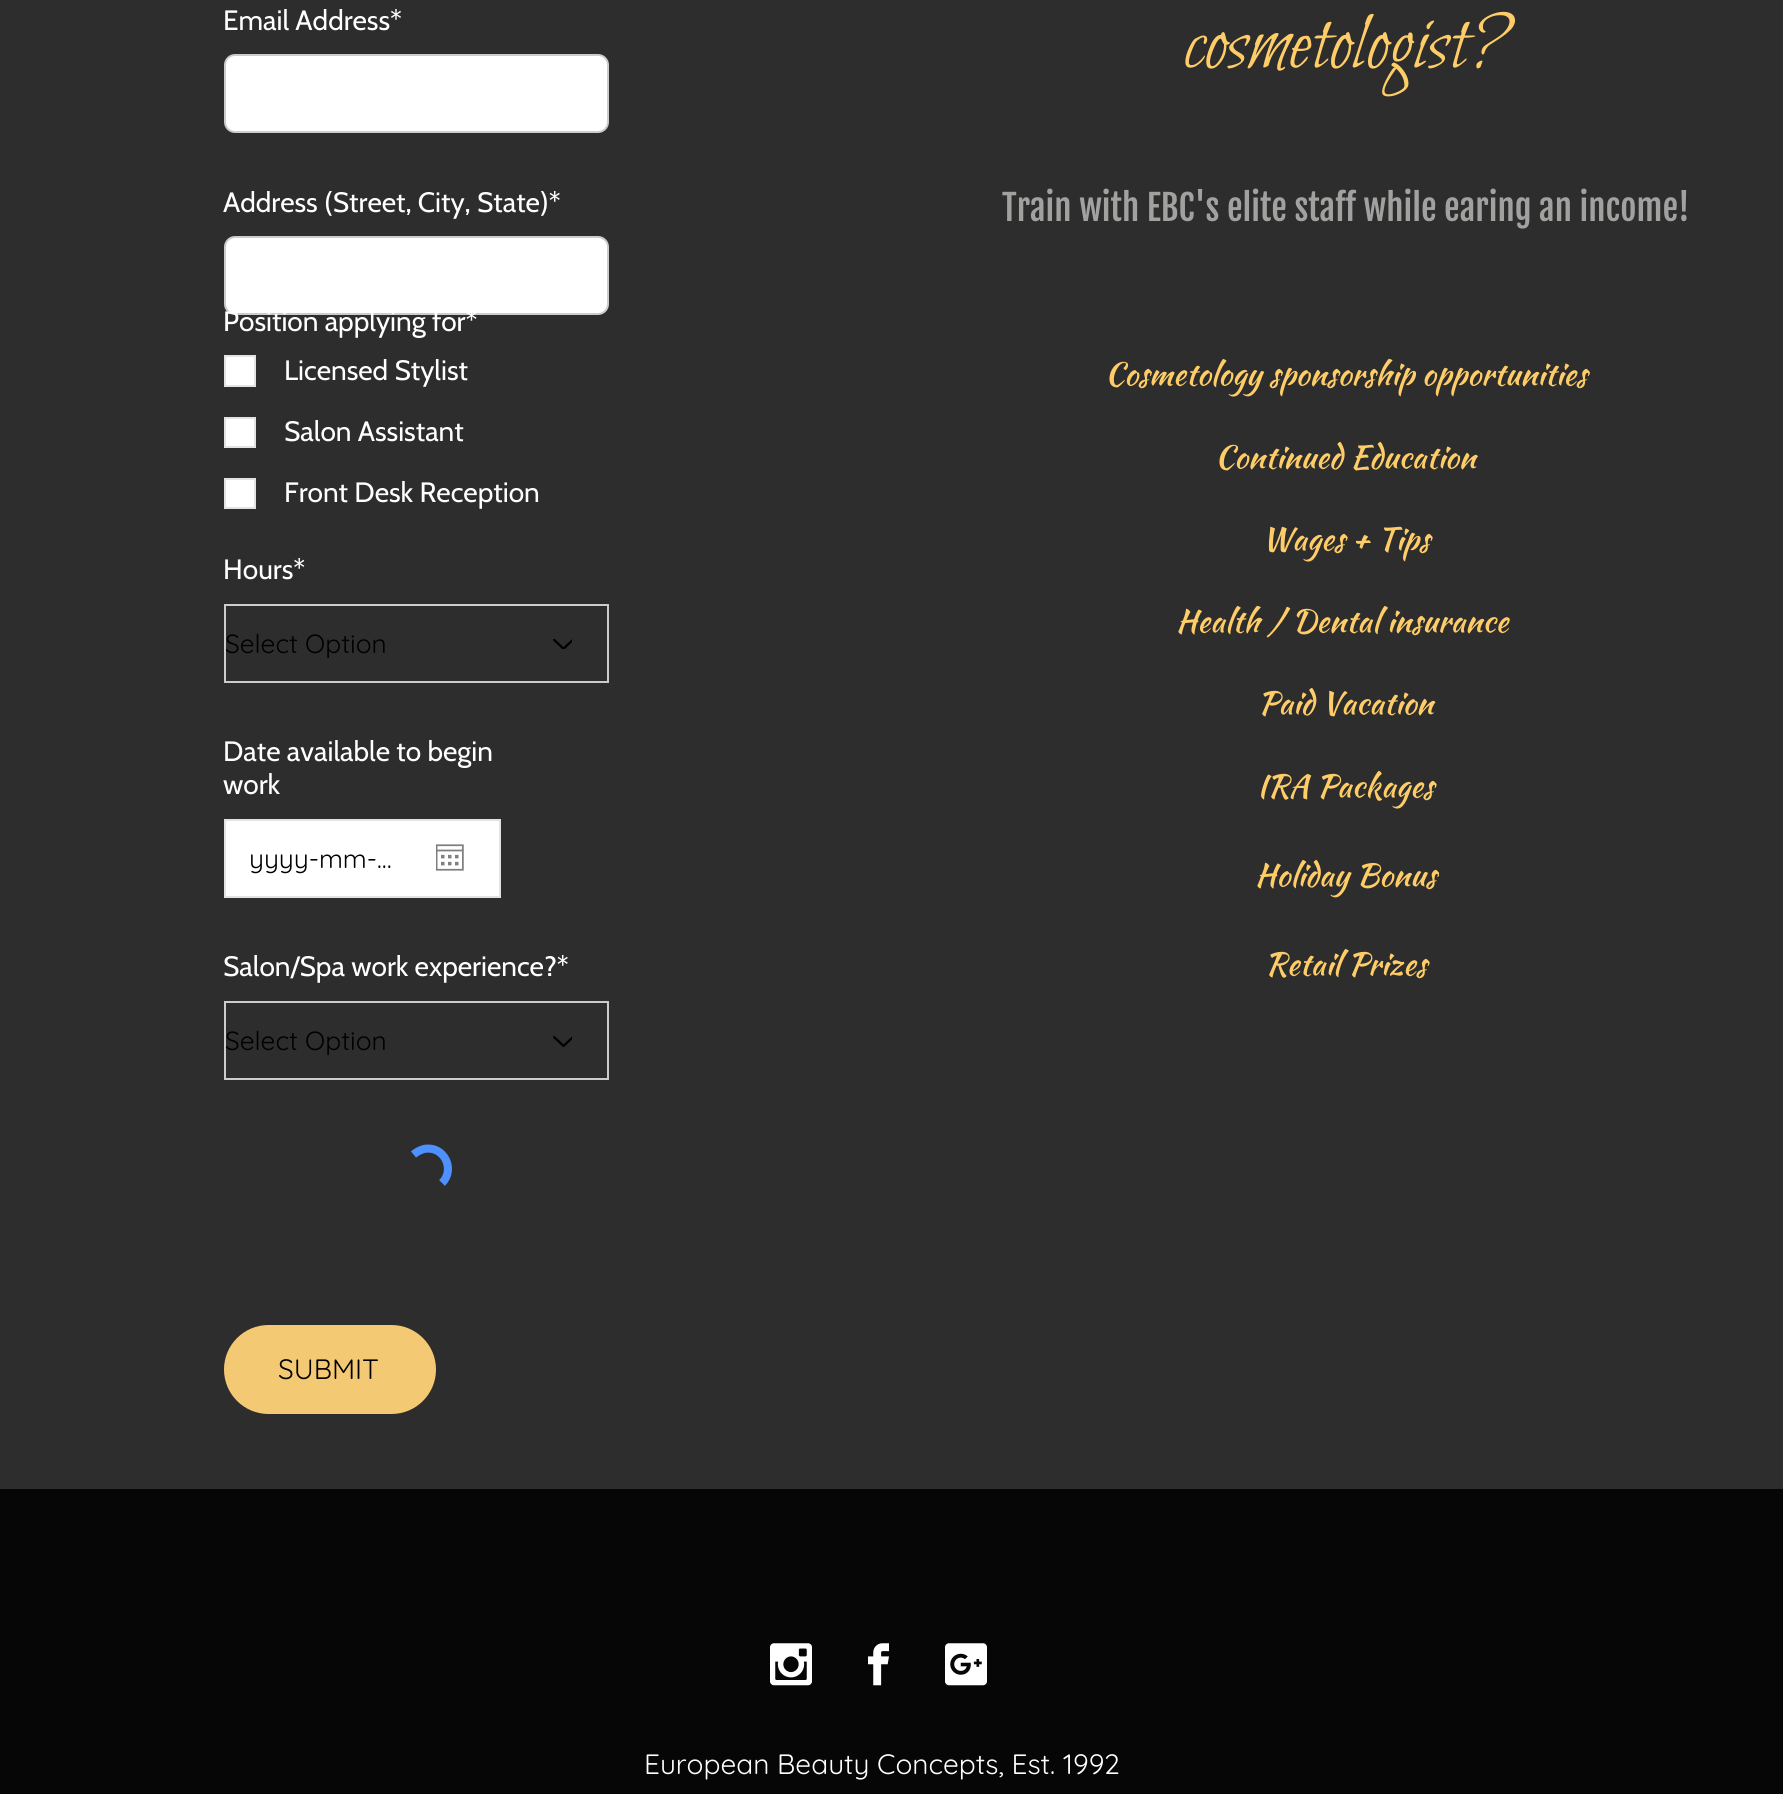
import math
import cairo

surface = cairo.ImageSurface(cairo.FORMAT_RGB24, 1783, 1794)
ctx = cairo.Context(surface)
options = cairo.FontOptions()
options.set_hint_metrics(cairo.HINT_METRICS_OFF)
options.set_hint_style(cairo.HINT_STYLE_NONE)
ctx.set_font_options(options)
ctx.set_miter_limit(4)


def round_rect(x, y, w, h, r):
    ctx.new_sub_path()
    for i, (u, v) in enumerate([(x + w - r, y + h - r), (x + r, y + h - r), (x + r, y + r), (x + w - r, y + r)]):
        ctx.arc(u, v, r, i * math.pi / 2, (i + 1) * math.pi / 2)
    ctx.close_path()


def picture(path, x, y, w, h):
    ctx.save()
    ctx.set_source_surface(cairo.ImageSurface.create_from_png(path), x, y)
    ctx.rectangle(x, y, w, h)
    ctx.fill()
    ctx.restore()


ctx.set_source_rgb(0.176, 0.176, 0.176)
ctx.paint()
ctx.select_font_face("Cabin")
ctx.set_font_size(28)
ctx.set_source_rgb(1, 1, 1)
ctx.move_to(223, 30)
ctx.show_text("Email Address*")
round_rect(225, 55, 383, 77, 10)
ctx.fill_preserve()
ctx.set_source_rgb(0.8, 0.8, 0.8)
ctx.stroke()
ctx.set_source_rgb(1, 1, 1)
ctx.move_to(223, 212)
ctx.show_text("Address (Street, City, State)*")
round_rect(225, 237, 383, 77, 10)
ctx.fill_preserve()
ctx.set_source_rgb(0.8, 0.8, 0.8)
ctx.stroke()
ctx.set_source_rgb(1, 1, 1)
ctx.move_to(223, 331)
ctx.show_text("Position applying for*")
ctx.rectangle(225, 356, 30, 30)
ctx.fill_preserve()
ctx.set_source_rgb(0.89, 0.89, 0.89)
ctx.stroke()
ctx.set_source_rgb(1, 1, 1)
ctx.move_to(284, 380)
ctx.show_text("Licensed Stylist")
ctx.rectangle(225, 418, 30, 29)
ctx.fill_preserve()
ctx.set_source_rgb(0.89, 0.89, 0.89)
ctx.stroke()
ctx.set_source_rgb(1, 1, 1)
ctx.move_to(284, 441)
ctx.show_text("Salon Assistant")
ctx.rectangle(225, 479, 30, 29)
ctx.fill_preserve()
ctx.set_source_rgb(0.89, 0.89, 0.89)
ctx.stroke()
ctx.set_source_rgb(1, 1, 1)
ctx.move_to(284, 502)
ctx.show_text("Front Desk Reception")
ctx.move_to(223, 579)
ctx.show_text("Hours*")
ctx.rectangle(225, 605, 383, 77)
ctx.set_source_rgb(0.8, 0.8, 0.8)
ctx.stroke()
ctx.select_font_face("Quicksand")
ctx.set_font_size(26.25)
ctx.set_source_rgb(0, 0, 0)
ctx.move_to(225, 653)
ctx.show_text("Select Option")
picture("img1.png", 553, 639, 19, 10)
ctx.select_font_face("Cabin")
ctx.set_font_size(28)
ctx.set_source_rgb(1, 1, 1)
ctx.move_to(223, 761)
ctx.show_text("Date available to begin")
ctx.move_to(223, 794)
ctx.show_text("work")
ctx.rectangle(225, 820, 275, 77)
ctx.fill_preserve()
ctx.set_source_rgb(0.89, 0.89, 0.89)
ctx.stroke()
ctx.select_font_face("Quicksand")
ctx.set_font_size(26.25)
ctx.set_source_rgb(0, 0, 0)
ctx.move_to(249, 868)
ctx.show_text("yyyy-mm-…")
picture("img2.png", 436, 844, 28, 27)
ctx.select_font_face("Cabin")
ctx.set_font_size(28)
ctx.set_source_rgb(1, 1, 1)
ctx.move_to(223, 976)
ctx.show_text("Salon/Spa work experience?*")
ctx.rectangle(225, 1002, 383, 77)
ctx.set_source_rgb(0.8, 0.8, 0.8)
ctx.stroke()
ctx.select_font_face("Quicksand")
ctx.set_font_size(26.25)
ctx.set_source_rgb(0, 0, 0)
ctx.move_to(225, 1050)
ctx.show_text("Select Option")
picture("img3.png", 553, 1036, 19, 11)
ctx.new_path()
ctx.move_to(413.5, 1154.5)
ctx.curve_to(416.5, 1152, 420, 1150, 424, 1149)
ctx.curve_to(443.5, 1145, 456, 1169, 442, 1183)
ctx.set_source_rgb(0.302, 0.565, 0.996)
ctx.set_line_width(8.1)
ctx.stroke()
ctx.set_source_rgb(0.957, 0.788, 0.451)
round_rect(224, 1325, 212, 89, 44.5)
ctx.fill()
ctx.set_font_size(28)
ctx.set_source_rgb(0, 0, 0)
ctx.move_to(278, 1379)
ctx.show_text("SUBMIT")
ctx.select_font_face("Bilbo Swash Caps")
ctx.set_font_size(84)
ctx.set_source_rgb(1, 0.804, 0.404)
ctx.move_to(1185, 67)
ctx.show_text("cosmetologist?")
ctx.select_font_face("Fjalla One")
ctx.set_font_size(35)
ctx.set_source_rgb(0.631, 0.631, 0.627)
ctx.move_to(1002, 221)
ctx.show_text("Train with EBC's elite staff while earing an income!")
ctx.select_font_face("Kaushan Script")
ctx.set_font_size(31.5)
ctx.set_source_rgb(1, 0.804, 0.404)
ctx.move_to(1105, 385)
ctx.show_text("Cosmetology sponsorship opportunities")
ctx.move_to(1215, 468)
ctx.show_text("Continued Education")
ctx.move_to(1262, 550)
ctx.show_text("Wages + Tips")
ctx.move_to(1176, 632)
ctx.show_text("Health / Dental insurance")
ctx.move_to(1258, 714)
ctx.show_text("Paid Vacation")
ctx.move_to(1257, 797)
ctx.show_text("IRA Packages")
ctx.move_to(1255, 886)
ctx.show_text("Holiday Bonus")
ctx.move_to(1265, 975)
ctx.show_text("Retail Prizes")
ctx.set_source_rgb(0.027, 0.027, 0.027)
ctx.rectangle(0, 1489, 1783, 305)
ctx.fill()
picture("img4.png", 770, 1643, 42, 43)
picture("img5.png", 868, 1643, 21, 43)
picture("img6.png", 945, 1643, 42, 43)
ctx.select_font_face("Quicksand")
ctx.set_font_size(28)
ctx.set_source_rgb(1, 1, 1)
ctx.move_to(644, 1774)
ctx.show_text("European Beauty Concepts, Est. 1992")
surface.write_to_png("page.png")
